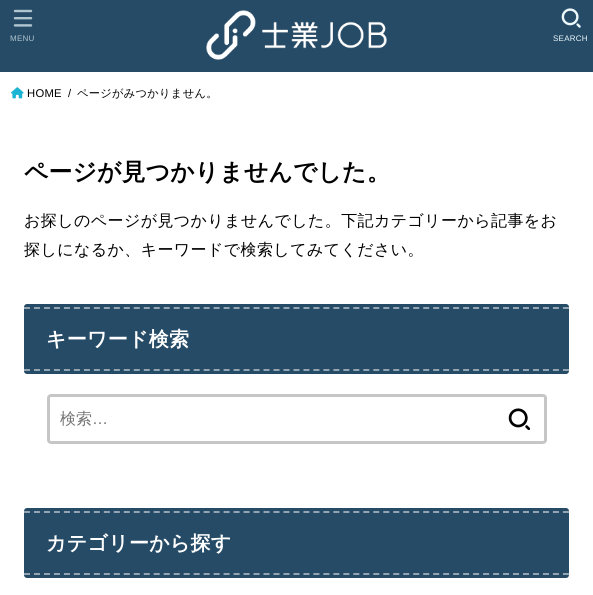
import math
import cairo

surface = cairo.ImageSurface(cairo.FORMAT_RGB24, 593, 595)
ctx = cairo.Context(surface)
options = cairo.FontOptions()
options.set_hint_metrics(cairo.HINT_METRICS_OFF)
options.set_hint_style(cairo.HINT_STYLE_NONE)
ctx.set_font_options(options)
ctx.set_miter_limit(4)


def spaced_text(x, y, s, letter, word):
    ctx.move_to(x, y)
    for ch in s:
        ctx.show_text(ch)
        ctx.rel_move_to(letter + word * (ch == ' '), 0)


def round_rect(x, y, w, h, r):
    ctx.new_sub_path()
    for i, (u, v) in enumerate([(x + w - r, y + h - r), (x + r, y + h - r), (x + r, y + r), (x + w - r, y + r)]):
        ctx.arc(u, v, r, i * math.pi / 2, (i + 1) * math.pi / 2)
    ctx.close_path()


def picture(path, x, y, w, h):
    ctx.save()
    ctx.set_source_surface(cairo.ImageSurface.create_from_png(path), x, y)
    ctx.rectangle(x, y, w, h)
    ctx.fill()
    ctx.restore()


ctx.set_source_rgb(0.149, 0.294, 0.404)
ctx.paint()
picture("img1.png", 13, 9, 20, 18)
ctx.select_font_face("Liberation Sans")
ctx.set_font_size(8)
ctx.set_source_rgb(0.694, 0.773, 0.812)
spaced_text(10, 41, "MENU", 0.25, 0)
picture("img2.png", 206, 10, 181, 50)
picture("img3.png", 561, 8, 20, 20)
ctx.set_source_rgb(0.929, 0.976, 0.988)
spaced_text(553, 41, "SEARCH", 0.25, 0)
ctx.set_source_rgb(1, 1, 1)
ctx.rectangle(0, 72, 593, 523)
ctx.fill()
picture("img4.png", 11, 87, 13, 12)
ctx.set_font_size(11.25)
ctx.set_source_rgb(0, 0, 0)
spaced_text(27, 97, "HOME", 0.25, 0)
spaced_text(68, 97, "/", 0.25, 0)
ctx.select_font_face("WenQuanYi Zen Hei Medium")
spaced_text(77, 97, "ページがみつかりません。", 0.25, 0)
ctx.select_font_face("WenQuanYi Zen Hei", cairo.FONT_SLANT_NORMAL, cairo.FONT_WEIGHT_BOLD)
ctx.set_font_size(23.75)
spaced_text(24, 180, "ページが見つかりませんでした。", 0.25, 0)
ctx.select_font_face("WenQuanYi Zen Hei Medium")
ctx.set_font_size(16)
spaced_text(24, 226, "お探しのページが見つかりませんでした。下記カテゴリーから記事をお", 0.4, 0)
spaced_text(24, 255, "探しになるか、キーワードで検索してみてください。", 0.4, 0)
ctx.set_source_rgb(0.149, 0.294, 0.404)
round_rect(24, 304, 545, 70, 3)
ctx.fill()
ctx.new_path()
ctx.move_to(24, 308)
ctx.line_to(569, 308)
ctx.set_source_rgb(0.576, 0.647, 0.702)
ctx.set_dash([6, 3.98])
ctx.stroke()
ctx.select_font_face("WenQuanYi Zen Hei", cairo.FONT_SLANT_NORMAL, cairo.FONT_WEIGHT_BOLD)
ctx.set_font_size(20)
ctx.set_source_rgb(1, 1, 1)
spaced_text(46, 346, "キーワード検索", 0.25, 0)
ctx.new_path()
ctx.move_to(24, 370)
ctx.line_to(569, 370)
ctx.set_source_rgb(0.576, 0.647, 0.702)
ctx.stroke()
round_rect(48.5, 395.5, 497, 47, 2.5)
ctx.set_source_rgb(0.776, 0.776, 0.776)
ctx.set_line_width(3)
ctx.set_dash([])
ctx.stroke()
ctx.select_font_face("WenQuanYi Zen Hei Medium")
ctx.set_font_size(16)
ctx.set_source_rgb(0.459, 0.459, 0.459)
ctx.move_to(60, 424)
ctx.show_text("検索")
ctx.select_font_face("Liberation Sans")
ctx.move_to(92, 424)
ctx.show_text("…")
picture("img5.png", 508, 408, 22, 22)
ctx.set_source_rgb(0.149, 0.294, 0.404)
round_rect(24, 508, 545, 70, 3)
ctx.fill()
ctx.new_path()
ctx.move_to(24, 512)
ctx.line_to(569, 512)
ctx.set_source_rgb(0.576, 0.647, 0.702)
ctx.set_line_width(2)
ctx.set_dash([6, 3.98])
ctx.stroke()
ctx.select_font_face("WenQuanYi Zen Hei", cairo.FONT_SLANT_NORMAL, cairo.FONT_WEIGHT_BOLD)
ctx.set_font_size(20)
ctx.set_source_rgb(1, 1, 1)
spaced_text(46, 550, "カテゴリーから探す", 0.25, 0)
ctx.new_path()
ctx.move_to(24, 574)
ctx.line_to(569, 574)
ctx.set_source_rgb(0.576, 0.647, 0.702)
ctx.stroke()
surface.write_to_png("page.png")
